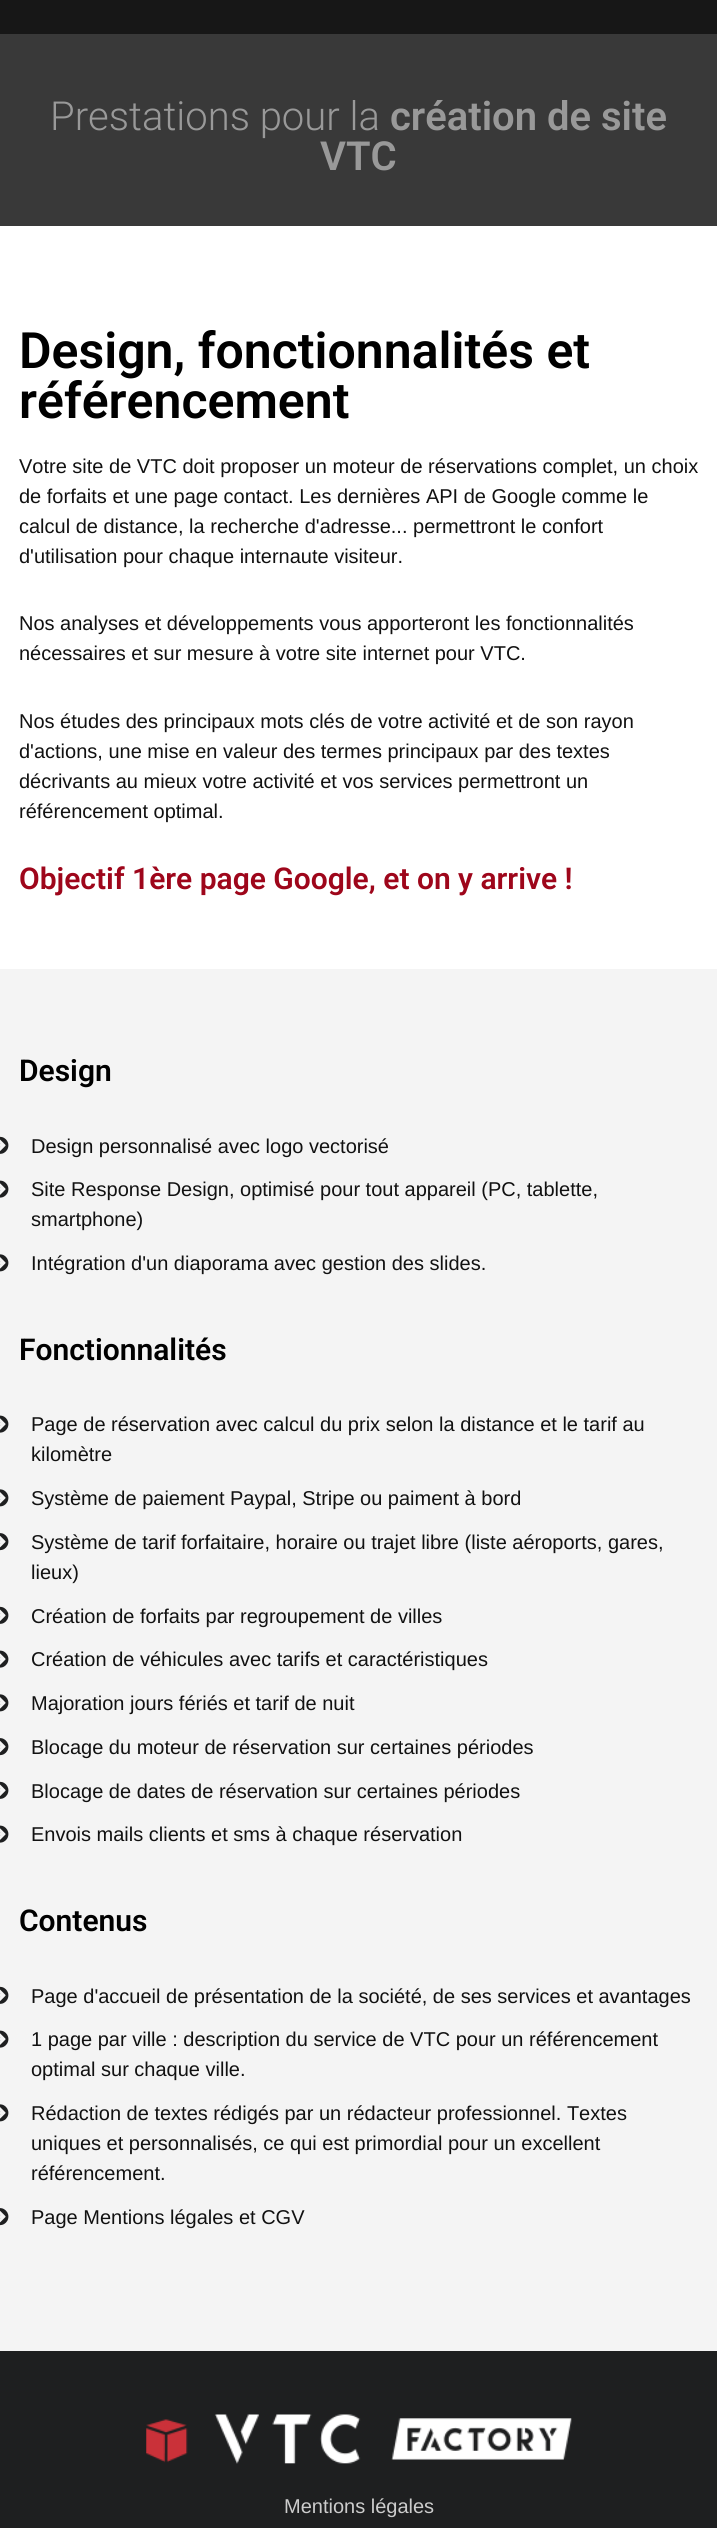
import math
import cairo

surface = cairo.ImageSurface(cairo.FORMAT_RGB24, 717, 2528)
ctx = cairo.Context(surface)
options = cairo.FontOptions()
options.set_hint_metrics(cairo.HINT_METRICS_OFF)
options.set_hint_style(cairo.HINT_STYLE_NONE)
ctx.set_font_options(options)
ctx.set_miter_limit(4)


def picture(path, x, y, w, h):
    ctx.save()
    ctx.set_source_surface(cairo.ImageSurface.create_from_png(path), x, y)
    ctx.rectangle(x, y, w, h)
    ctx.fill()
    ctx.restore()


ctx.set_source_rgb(1, 1, 1)
ctx.paint()
ctx.set_source_rgb(0.09, 0.09, 0.09)
ctx.rectangle(0, 0, 717, 34)
ctx.fill()
ctx.set_source_rgb(0.224, 0.224, 0.224)
ctx.rectangle(0, 34, 717, 192)
ctx.fill()
ctx.select_font_face("Roboto Light")
ctx.set_font_size(40)
ctx.set_source_rgb(0.6, 0.6, 0.6)
ctx.move_to(50, 130)
ctx.show_text("Prestations pour la")
ctx.select_font_face("Roboto SemiBold")
ctx.move_to(390, 130)
ctx.show_text("création de site")
ctx.move_to(320, 170)
ctx.show_text("VTC")
ctx.set_font_size(50)
ctx.set_source_rgb(0, 0, 0)
ctx.move_to(19, 368)
ctx.show_text("Design, fonctionnalités et")
ctx.move_to(19, 418)
ctx.show_text("référencement")
ctx.select_font_face("Liberation Sans")
ctx.set_font_size(20)
ctx.set_source_rgb(0.067, 0.067, 0.067)
ctx.move_to(19, 473)
ctx.show_text("Votre site de VTC doit proposer un moteur de réservations complet, un choix")
ctx.move_to(19, 503)
ctx.show_text("de forfaits et une page contact. Les dernières API de Google comme le")
ctx.move_to(19, 533)
ctx.show_text("calcul de distance, la recherche d'adresse... permettront le confort")
ctx.move_to(19, 563)
ctx.show_text("d'utilisation pour chaque internaute visiteur.")
ctx.move_to(19, 630)
ctx.show_text("Nos analyses et développements vous apporteront les fonctionnalités")
ctx.move_to(19, 660)
ctx.show_text("nécessaires et sur mesure à votre site internet pour VTC.")
ctx.move_to(19, 728)
ctx.show_text("Nos études des principaux mots clés de votre activité et de son rayon")
ctx.move_to(19, 758)
ctx.show_text("d'actions, une mise en valeur des termes principaux par des textes")
ctx.move_to(19, 788)
ctx.show_text("décrivants au mieux votre activité et vos services permettront un")
ctx.move_to(19, 818)
ctx.show_text("référencement optimal.")
ctx.select_font_face("Roboto SemiBold")
ctx.set_font_size(30)
ctx.set_source_rgb(0.62, 0.024, 0.106)
ctx.move_to(19, 889)
ctx.show_text("Objectif 1ère page Google, et on y arrive !")
ctx.set_source_rgb(0.957, 0.957, 0.957)
ctx.rectangle(0, 969, 717, 1382)
ctx.fill()
ctx.set_source_rgb(0, 0, 0)
ctx.move_to(19, 1081)
ctx.show_text("Design")
picture("img1.png", 0, 1136, 9, 18)
ctx.select_font_face("Liberation Sans")
ctx.set_font_size(20)
ctx.set_source_rgb(0.067, 0.067, 0.067)
ctx.move_to(31, 1153)
ctx.show_text("Design personnalisé avec logo vectorisé")
picture("img2.png", 0, 1180, 9, 18)
ctx.move_to(31, 1196)
ctx.show_text("Site Response Design, optimisé pour tout appareil (PC, tablette,")
ctx.move_to(31, 1226)
ctx.show_text("smartphone)")
picture("img3.png", 0, 1254, 9, 18)
ctx.move_to(31, 1270)
ctx.show_text("Intégration d'un diaporama avec gestion des slides.")
ctx.select_font_face("Roboto SemiBold")
ctx.set_font_size(30)
ctx.set_source_rgb(0, 0, 0)
ctx.move_to(19, 1360)
ctx.show_text("Fonctionnalités")
picture("img2.png", 0, 1415, 9, 18)
ctx.select_font_face("Liberation Sans")
ctx.set_font_size(20)
ctx.set_source_rgb(0.067, 0.067, 0.067)
ctx.move_to(31, 1431)
ctx.show_text("Page de réservation avec calcul du prix selon la distance et le tarif au")
ctx.move_to(31, 1461)
ctx.show_text("kilomètre")
picture("img3.png", 0, 1489, 9, 18)
ctx.move_to(31, 1505)
ctx.show_text("Système de paiement Paypal, Stripe ou paiment à bord")
picture("img4.png", 0, 1533, 9, 18)
ctx.move_to(31, 1549)
ctx.show_text("Système de tarif forfaitaire, horaire ou trajet libre (liste aéroports, gares,")
ctx.move_to(31, 1579)
ctx.show_text("lieux)")
picture("img1.png", 0, 1606, 9, 18)
ctx.move_to(31, 1623)
ctx.show_text("Création de forfaits par regroupement de villes")
picture("img2.png", 0, 1650, 9, 18)
ctx.move_to(31, 1666)
ctx.show_text("Création de véhicules avec tarifs et caractéristiques")
picture("img3.png", 0, 1694, 9, 18)
ctx.move_to(31, 1710)
ctx.show_text("Majoration jours fériés et tarif de nuit")
picture("img4.png", 0, 1738, 9, 18)
ctx.move_to(31, 1754)
ctx.show_text("Blocage du moteur de réservation sur certaines périodes")
picture("img1.png", 0, 1781, 9, 18)
ctx.move_to(31, 1798)
ctx.show_text("Blocage de dates de réservation sur certaines périodes")
picture("img2.png", 0, 1825, 9, 18)
ctx.move_to(31, 1841)
ctx.show_text("Envois mails clients et sms à chaque réservation")
ctx.select_font_face("Roboto SemiBold")
ctx.set_font_size(30)
ctx.set_source_rgb(0, 0, 0)
ctx.move_to(19, 1931)
ctx.show_text("Contenus")
picture("img1.png", 0, 1986, 9, 18)
ctx.select_font_face("Liberation Sans")
ctx.set_font_size(20)
ctx.set_source_rgb(0.067, 0.067, 0.067)
ctx.move_to(31, 2003)
ctx.show_text("Page d'accueil de présentation de la société, de ses services et avantages")
picture("img2.png", 0, 2030, 9, 18)
ctx.move_to(31, 2046)
ctx.show_text("1 page par ville : description du service de VTC pour un référencement")
ctx.move_to(31, 2076)
ctx.show_text("optimal sur chaque ville.")
picture("img3.png", 0, 2104, 9, 18)
ctx.move_to(31, 2120)
ctx.show_text("Rédaction de textes rédigés par un rédacteur professionnel. Textes")
ctx.move_to(31, 2150)
ctx.show_text("uniques et personnalisés, ce qui est primordial pour un excellent")
ctx.move_to(31, 2180)
ctx.show_text("référencement.")
picture("img4.png", 0, 2208, 9, 18)
ctx.move_to(31, 2224)
ctx.show_text("Page Mentions légales et CGV")
ctx.set_source_rgb(0.118, 0.122, 0.125)
ctx.rectangle(0, 2351, 717, 177)
ctx.fill()
picture("img5.png", 146, 2414, 426, 50)
ctx.set_source_rgb(0.8, 0.8, 0.8)
ctx.move_to(284, 2513)
ctx.show_text("Mentions légales")
surface.write_to_png("page.png")
